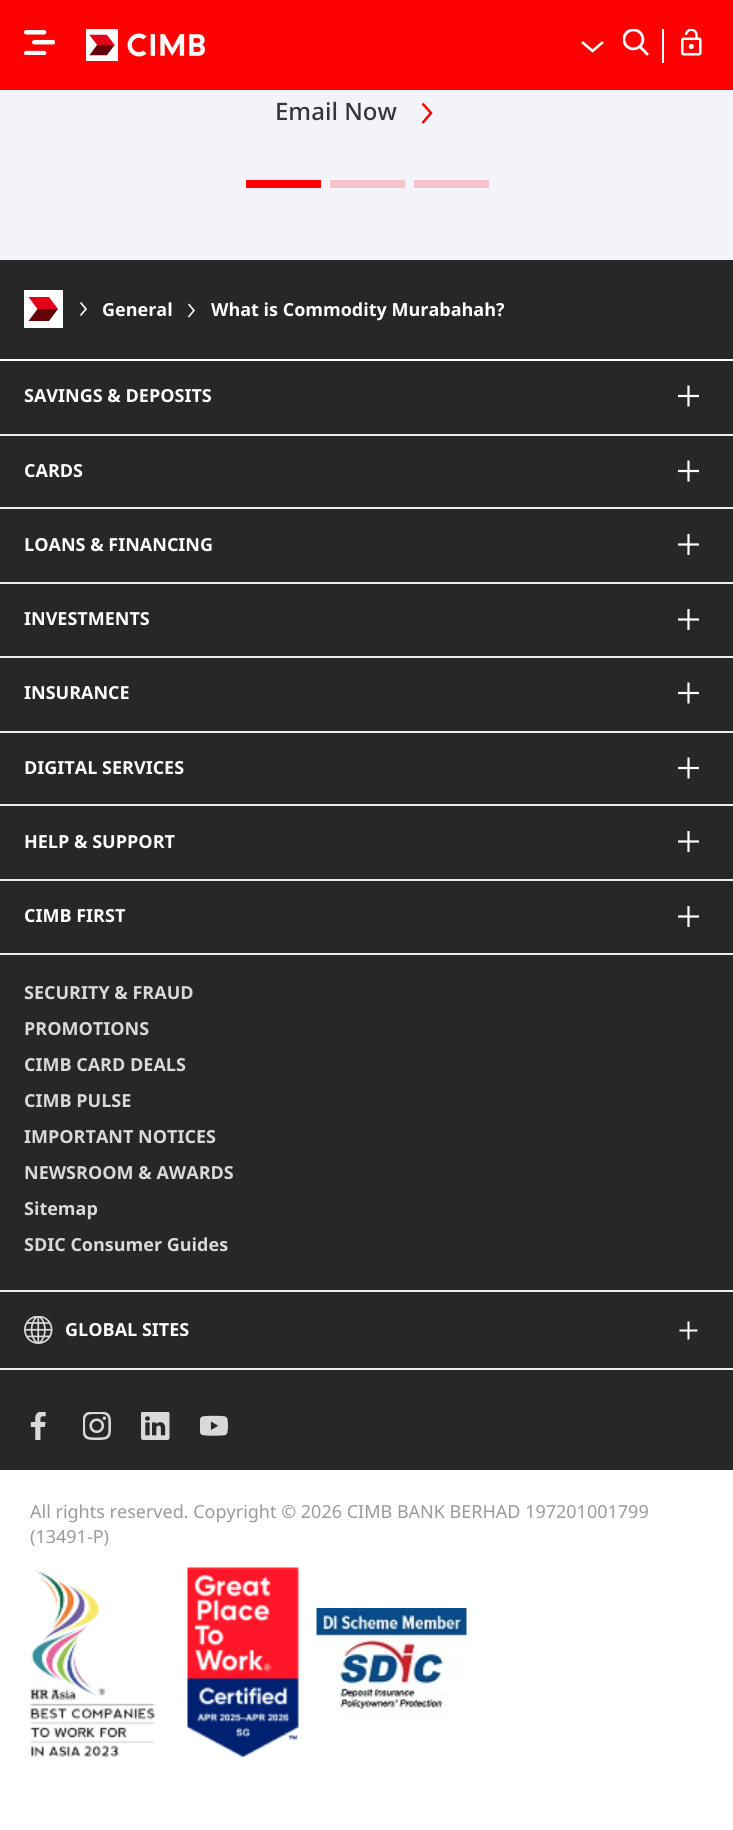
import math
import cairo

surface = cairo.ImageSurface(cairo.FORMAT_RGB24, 733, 1830)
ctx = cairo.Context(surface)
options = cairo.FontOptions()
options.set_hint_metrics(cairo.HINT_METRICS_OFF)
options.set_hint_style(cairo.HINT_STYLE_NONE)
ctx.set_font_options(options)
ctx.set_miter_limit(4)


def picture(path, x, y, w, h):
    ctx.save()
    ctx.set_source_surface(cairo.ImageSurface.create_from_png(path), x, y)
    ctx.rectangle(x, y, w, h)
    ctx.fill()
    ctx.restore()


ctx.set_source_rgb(1, 1, 1)
ctx.paint()
ctx.set_source_rgb(1, 0, 0)
ctx.rectangle(0, 0, 733, 90)
ctx.fill()
picture("img1.png", 24, 30, 31, 25)
picture("img2.png", 86, 29, 119, 32)
ctx.new_path()
ctx.move_to(603, 42)
ctx.line_to(592.5, 51)
ctx.line_to(582, 42)
ctx.set_source_rgb(1, 1, 1)
ctx.set_line_width(2.6)
ctx.stroke()
ctx.rectangle(662, 29, 2, 34)
ctx.fill()
picture("img3.png", 623, 29, 26, 27)
picture("img4.png", 681, 29, 21, 27)
ctx.set_source_rgb(0.953, 0.957, 0.98)
ctx.rectangle(0, 90, 733, 170)
ctx.fill()
ctx.select_font_face("Noto Sans Medium")
ctx.set_font_size(24)
ctx.set_source_rgb(0.2, 0.216, 0.224)
ctx.move_to(275, 120)
ctx.show_text("Email Now")
ctx.new_path()
ctx.move_to(422.5, 123)
ctx.line_to(431, 113)
ctx.line_to(422.5, 103.5)
ctx.set_source_rgb(1, 0, 0)
ctx.set_line_width(2.5)
ctx.stroke()
ctx.rectangle(246, 180, 75, 8)
ctx.fill()
ctx.set_source_rgb(0.961, 0.765, 0.784)
ctx.rectangle(330, 180, 75, 8)
ctx.fill()
ctx.rectangle(414, 180, 75, 8)
ctx.fill()
ctx.set_source_rgb(0.153, 0.153, 0.153)
ctx.rectangle(0, 260, 733, 1210)
ctx.fill()
ctx.set_source_rgb(1, 1, 1)
ctx.rectangle(0, 359, 733, 2)
ctx.fill()
ctx.rectangle(24, 290, 39, 38)
ctx.fill()
ctx.set_source_rgb(0.898, 0, 0.098)
ctx.new_path()
ctx.move_to(49, 297)
ctx.line_to(28.5, 297)
ctx.line_to(37.5, 309)
ctx.line_to(58, 309)
ctx.close_path()
ctx.fill()
ctx.set_source_rgb(0.392, 0, 0.031)
ctx.new_path()
ctx.move_to(58, 309)
ctx.line_to(37.5, 309)
ctx.line_to(28.5, 321)
ctx.line_to(49, 321)
ctx.close_path()
ctx.fill()
ctx.new_path()
ctx.move_to(80.5, 315.5)
ctx.line_to(86, 309)
ctx.line_to(80.5, 302.5)
ctx.set_source_rgb(1, 1, 1)
ctx.set_line_width(1.6)
ctx.stroke()
ctx.select_font_face("Noto Sans", cairo.FONT_SLANT_NORMAL, cairo.FONT_WEIGHT_BOLD)
ctx.set_font_size(18)
ctx.move_to(102, 316)
ctx.show_text("General")
ctx.new_path()
ctx.move_to(188.5, 317)
ctx.line_to(194, 310.5)
ctx.line_to(188.5, 304)
ctx.stroke()
ctx.move_to(211, 316)
ctx.show_text("What is Commodity Murabahah?")
ctx.set_source_rgb(0.929, 0.929, 0.929)
ctx.rectangle(0, 434, 733, 2)
ctx.fill()
ctx.set_source_rgb(1, 1, 1)
ctx.move_to(24, 402)
ctx.show_text("SAVINGS & DEPOSITS")
ctx.new_path()
ctx.move_to(688.5, 385.5)
ctx.line_to(688.5, 406.5)
ctx.move_to(678, 396)
ctx.line_to(699, 396)
ctx.set_line_width(2.2)
ctx.stroke()
ctx.set_source_rgb(0.929, 0.929, 0.929)
ctx.rectangle(0, 507, 733, 2)
ctx.fill()
ctx.set_source_rgb(1, 1, 1)
ctx.move_to(24, 477)
ctx.show_text("CARDS")
ctx.new_path()
ctx.move_to(688.5, 460.5)
ctx.line_to(688.5, 481.5)
ctx.move_to(678, 471)
ctx.line_to(699, 471)
ctx.stroke()
ctx.set_source_rgb(0.929, 0.929, 0.929)
ctx.rectangle(0, 582, 733, 2)
ctx.fill()
ctx.set_source_rgb(1, 1, 1)
ctx.move_to(24, 551)
ctx.show_text("LOANS & FINANCING")
ctx.new_path()
ctx.move_to(688.5, 534)
ctx.line_to(688.5, 555)
ctx.move_to(678, 544.5)
ctx.line_to(699, 544.5)
ctx.stroke()
ctx.set_source_rgb(0.929, 0.929, 0.929)
ctx.rectangle(0, 656, 733, 2)
ctx.fill()
ctx.set_source_rgb(1, 1, 1)
ctx.move_to(24, 625)
ctx.show_text("INVESTMENTS")
ctx.new_path()
ctx.move_to(688.5, 609)
ctx.line_to(688.5, 630)
ctx.move_to(678, 619.5)
ctx.line_to(699, 619.5)
ctx.stroke()
ctx.set_source_rgb(0.929, 0.929, 0.929)
ctx.rectangle(0, 731, 733, 2)
ctx.fill()
ctx.set_source_rgb(1, 1, 1)
ctx.move_to(24, 699)
ctx.show_text("INSURANCE")
ctx.new_path()
ctx.move_to(688.5, 682.5)
ctx.line_to(688.5, 703.5)
ctx.move_to(678, 693)
ctx.line_to(699, 693)
ctx.stroke()
ctx.set_source_rgb(0.929, 0.929, 0.929)
ctx.rectangle(0, 804, 733, 2)
ctx.fill()
ctx.set_source_rgb(1, 1, 1)
ctx.move_to(24, 774)
ctx.show_text("DIGITAL SERVICES")
ctx.new_path()
ctx.move_to(688.5, 757.5)
ctx.line_to(688.5, 778.5)
ctx.move_to(678, 768)
ctx.line_to(699, 768)
ctx.stroke()
ctx.set_source_rgb(0.929, 0.929, 0.929)
ctx.rectangle(0, 879, 733, 2)
ctx.fill()
ctx.set_source_rgb(1, 1, 1)
ctx.move_to(24, 848)
ctx.show_text("HELP & SUPPORT")
ctx.new_path()
ctx.move_to(688.5, 831)
ctx.line_to(688.5, 852)
ctx.move_to(678, 841.5)
ctx.line_to(699, 841.5)
ctx.stroke()
ctx.set_source_rgb(0.929, 0.929, 0.929)
ctx.rectangle(0, 953, 733, 2)
ctx.fill()
ctx.set_source_rgb(1, 1, 1)
ctx.move_to(24, 922)
ctx.show_text("CIMB FIRST")
ctx.new_path()
ctx.move_to(688.5, 906)
ctx.line_to(688.5, 927)
ctx.move_to(678, 916.5)
ctx.line_to(699, 916.5)
ctx.stroke()
ctx.set_source_rgb(0.929, 0.929, 0.929)
ctx.rectangle(0, 1290, 733, 2)
ctx.fill()
ctx.set_source_rgb(0.851, 0.851, 0.851)
ctx.move_to(24, 999)
ctx.show_text("SECURITY & FRAUD")
ctx.move_to(24, 1035)
ctx.show_text("PROMOTIONS")
ctx.move_to(24, 1071)
ctx.show_text("CIMB CARD DEALS")
ctx.move_to(24, 1107)
ctx.show_text("CIMB PULSE")
ctx.move_to(24, 1143)
ctx.show_text("IMPORTANT NOTICES")
ctx.move_to(24, 1179)
ctx.show_text("NEWSROOM & AWARDS")
ctx.move_to(24, 1215)
ctx.show_text("Sitemap")
ctx.move_to(24, 1251)
ctx.show_text("SDIC Consumer Guides")
ctx.set_source_rgb(0.929, 0.929, 0.929)
ctx.rectangle(0, 1368, 733, 2)
ctx.fill()
picture("img5.png", 24, 1316, 29, 28)
ctx.set_source_rgb(1, 1, 1)
ctx.move_to(65, 1336)
ctx.show_text("GLOBAL SITES")
ctx.new_path()
ctx.move_to(688.5, 1321.5)
ctx.line_to(688.5, 1339.5)
ctx.move_to(679.5, 1330.5)
ctx.line_to(697.5, 1330.5)
ctx.set_line_width(2)
ctx.stroke()
picture("img6.png", 30, 1412, 16, 28)
picture("img7.png", 83, 1412, 28, 28)
picture("img8.png", 141, 1412, 29, 28)
picture("img9.png", 200, 1415, 28, 21)
ctx.select_font_face("Noto Sans")
ctx.set_source_rgb(0.604, 0.604, 0.608)
ctx.move_to(30, 1518)
ctx.show_text("All rights reserved. Copyright © 2026 CIMB BANK BERHAD 197201001799")
ctx.move_to(30, 1543)
ctx.show_text("(13491-P)")
picture("img10.png", 30, 1570, 125, 187)
picture("img11.png", 187, 1567, 112, 190)
picture("img12.png", 316, 1608, 151, 108)
surface.write_to_png("page.png")
